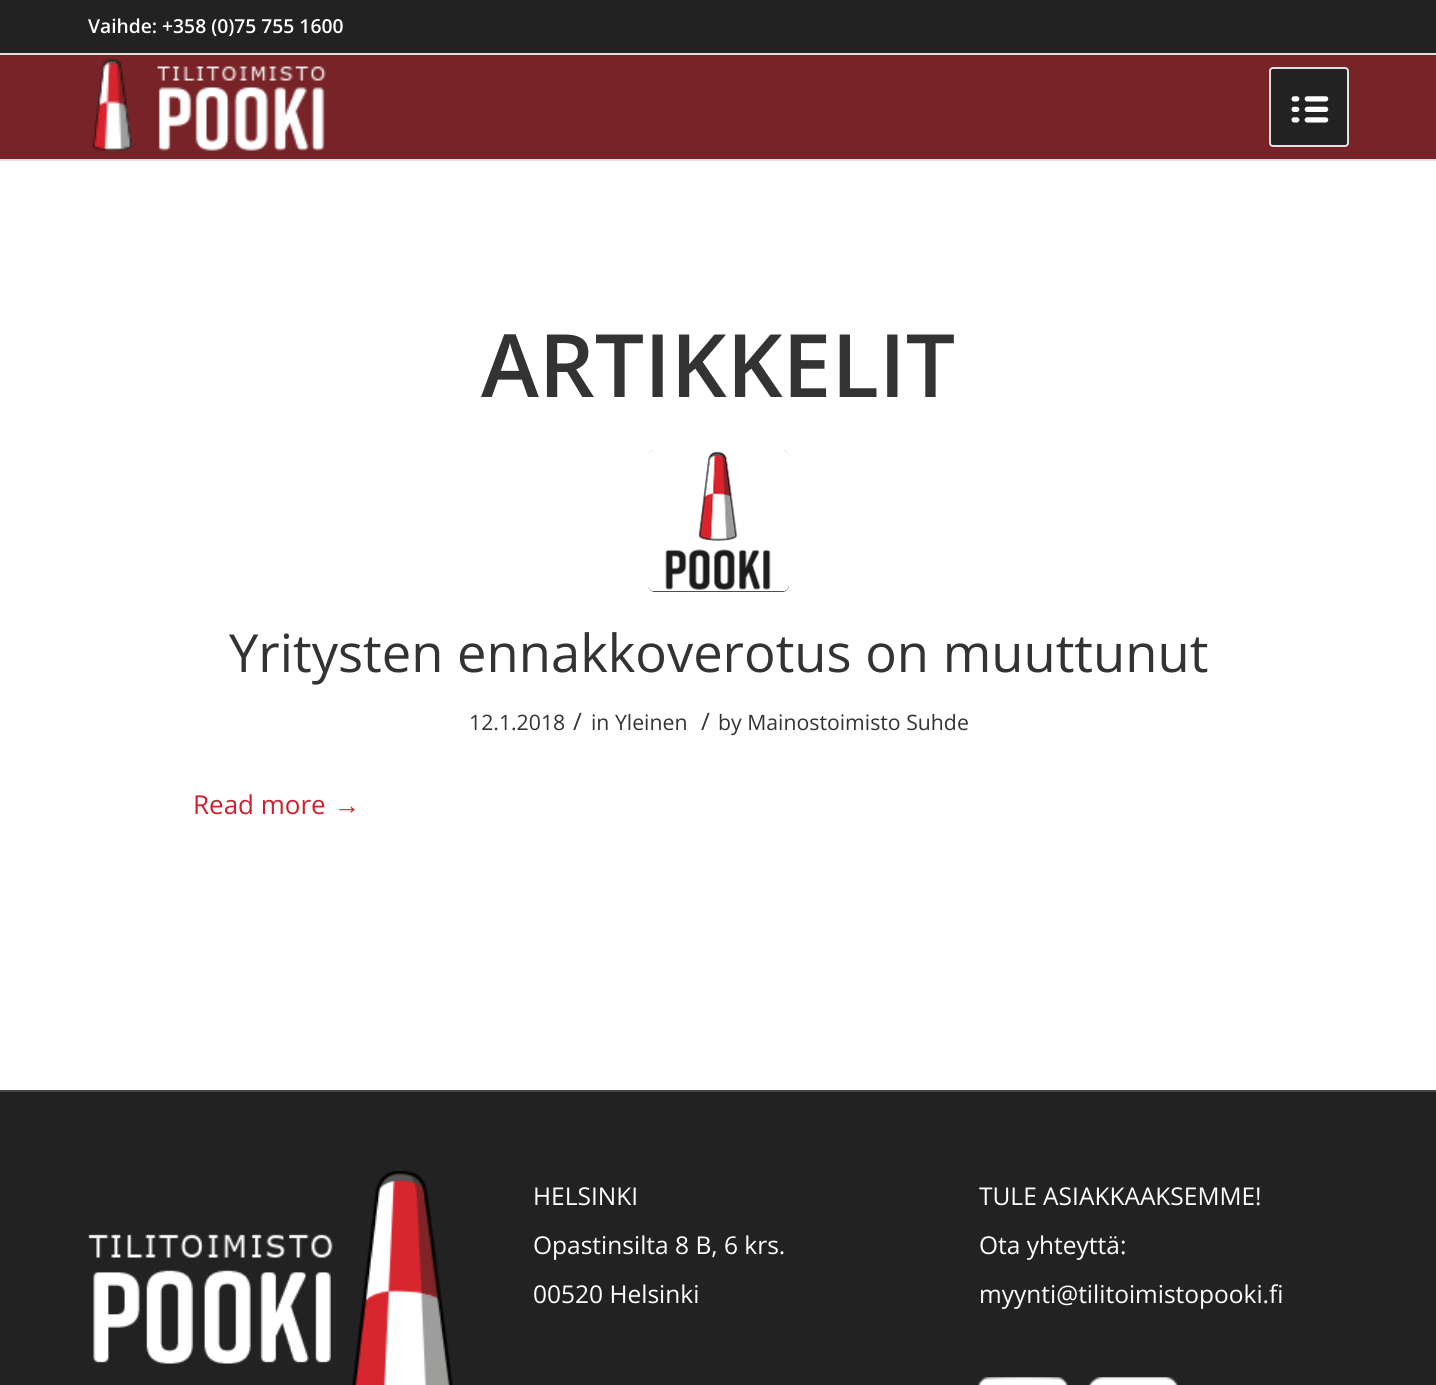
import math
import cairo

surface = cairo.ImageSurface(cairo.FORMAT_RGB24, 1436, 1385)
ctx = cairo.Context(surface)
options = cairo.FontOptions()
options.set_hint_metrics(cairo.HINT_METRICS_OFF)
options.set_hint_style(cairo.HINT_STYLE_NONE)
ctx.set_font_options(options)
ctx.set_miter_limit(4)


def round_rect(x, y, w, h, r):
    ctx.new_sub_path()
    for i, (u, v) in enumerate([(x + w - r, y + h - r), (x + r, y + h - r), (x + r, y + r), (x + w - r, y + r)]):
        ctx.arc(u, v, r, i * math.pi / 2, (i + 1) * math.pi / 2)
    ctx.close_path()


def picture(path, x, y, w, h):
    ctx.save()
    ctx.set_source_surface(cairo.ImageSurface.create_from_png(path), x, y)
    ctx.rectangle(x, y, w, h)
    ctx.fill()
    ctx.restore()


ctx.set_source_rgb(0.133, 0.133, 0.133)
ctx.paint()
ctx.set_source_rgb(0.882, 0.882, 0.882)
ctx.rectangle(0, 53, 1436, 2)
ctx.fill()
ctx.select_font_face("Open Sans SemiBold")
ctx.set_font_size(19.25)
ctx.set_source_rgb(1, 1, 1)
ctx.move_to(88, 33)
ctx.show_text("Vaihde: +358 (0)75 755 1600")
ctx.set_source_rgb(0.471, 0.137, 0.153)
ctx.rectangle(0, 55, 1436, 104)
ctx.fill()
ctx.set_source_rgb(0.882, 0.882, 0.882)
ctx.rectangle(0, 159, 1436, 2)
ctx.fill()
picture("img1.png", 92, 59, 234, 92)
ctx.set_source_rgb(0.133, 0.133, 0.133)
round_rect(1270, 68, 78, 78, 3)
ctx.fill_preserve()
ctx.set_source_rgb(0.882, 0.882, 0.882)
ctx.stroke()
picture("img2.png", 1291, 96, 38, 27)
ctx.set_source_rgb(1, 1, 1)
ctx.rectangle(0, 161, 1436, 929)
ctx.fill()
ctx.set_font_size(87.5)
ctx.set_source_rgb(0.2, 0.2, 0.2)
ctx.move_to(481, 397)
ctx.show_text("ARTIKKELIT")
round_rect(648, 450, 141, 142, 7)
ctx.fill()
picture("img3.png", 648, 450, 141, 142)
ctx.select_font_face("Open Sans")
ctx.set_font_size(52.5)
ctx.move_to(229, 672)
ctx.show_text("Yritysten ennakkoverotus on muuttunut")
ctx.set_font_size(21.25)
ctx.move_to(469, 730)
ctx.show_text("12.1.2018")
ctx.set_font_size(24)
ctx.move_to(573, 730)
ctx.show_text("/")
ctx.set_font_size(21.25)
ctx.move_to(591, 730)
ctx.show_text("in Yleinen")
ctx.set_font_size(24)
ctx.move_to(701, 730)
ctx.show_text("/")
ctx.set_font_size(21.25)
ctx.move_to(718, 730)
ctx.show_text("by Mainostoimisto Suhde")
ctx.set_font_size(26)
ctx.set_source_rgb(0.804, 0.125, 0.173)
ctx.move_to(193, 814)
ctx.show_text("Read more")
ctx.select_font_face("Liberation Sans")
ctx.move_to(334, 814)
ctx.show_text("→")
ctx.set_source_rgb(0.267, 0.267, 0.267)
ctx.rectangle(0, 1090, 1436, 2)
ctx.fill()
picture("img4.png", 88, 1171, 365, 214)
ctx.select_font_face("Open Sans")
ctx.set_font_size(24.5)
ctx.set_source_rgb(1, 1, 1)
ctx.move_to(533, 1205)
ctx.show_text("HELSINKI")
ctx.move_to(533, 1254)
ctx.show_text("Opastinsilta 8 B, 6 krs.")
ctx.move_to(533, 1303)
ctx.show_text("00520 Helsinki")
ctx.move_to(979, 1205)
ctx.show_text("TULE ASIAKKAAKSEMME!")
ctx.move_to(979, 1254)
ctx.show_text("Ota yhteyttä:")
ctx.move_to(979, 1303)
ctx.show_text("myynti@tilitoimistopooki.fi")
picture("img5.png", 978, 1377, 90, 8)
picture("img6.png", 1088, 1377, 90, 8)
surface.write_to_png("page.png")
